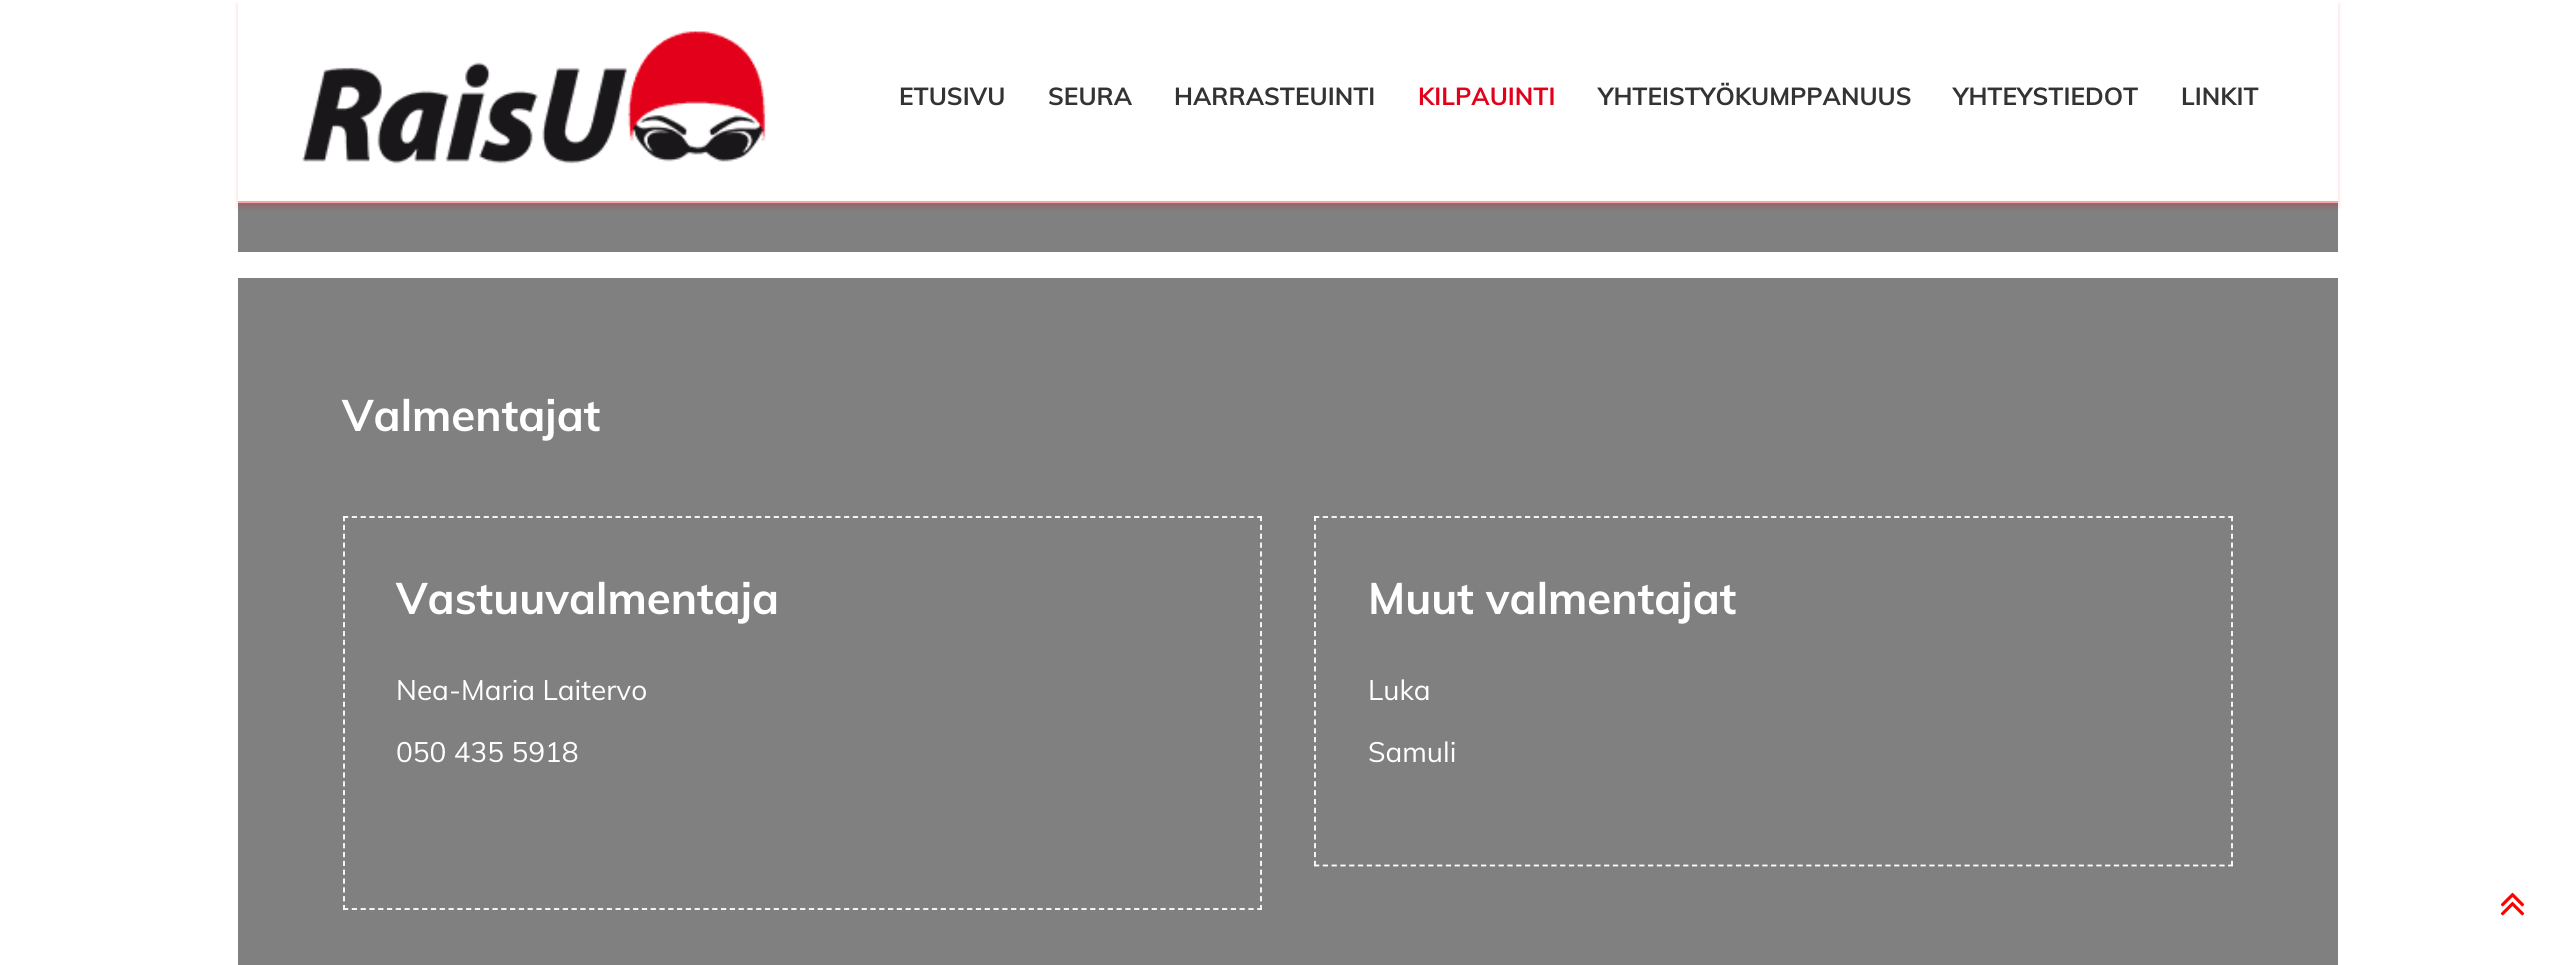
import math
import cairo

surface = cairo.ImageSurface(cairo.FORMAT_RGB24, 2574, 965)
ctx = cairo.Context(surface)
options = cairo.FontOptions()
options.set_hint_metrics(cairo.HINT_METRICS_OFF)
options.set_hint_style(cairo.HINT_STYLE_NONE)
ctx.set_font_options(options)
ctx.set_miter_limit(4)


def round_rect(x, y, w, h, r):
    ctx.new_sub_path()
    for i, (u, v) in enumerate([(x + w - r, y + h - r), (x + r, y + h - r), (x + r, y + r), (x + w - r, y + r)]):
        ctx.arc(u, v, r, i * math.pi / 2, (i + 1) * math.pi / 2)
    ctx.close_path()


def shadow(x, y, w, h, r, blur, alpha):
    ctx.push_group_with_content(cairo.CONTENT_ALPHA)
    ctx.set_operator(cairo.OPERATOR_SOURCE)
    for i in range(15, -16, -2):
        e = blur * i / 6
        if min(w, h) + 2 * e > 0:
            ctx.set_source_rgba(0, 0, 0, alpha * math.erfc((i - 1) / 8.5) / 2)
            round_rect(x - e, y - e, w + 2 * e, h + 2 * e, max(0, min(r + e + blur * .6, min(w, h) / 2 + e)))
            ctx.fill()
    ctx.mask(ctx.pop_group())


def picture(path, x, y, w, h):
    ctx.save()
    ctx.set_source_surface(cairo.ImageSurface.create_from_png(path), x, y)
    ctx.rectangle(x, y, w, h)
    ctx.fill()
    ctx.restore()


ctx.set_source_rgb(1, 1, 1)
ctx.paint()
ctx.set_source_rgb(0.502, 0.502, 0.502)
ctx.rectangle(238, 203, 2100, 49)
ctx.fill()
ctx.set_source_rgb(0.886, 0, 0.102)
shadow(238, 4, 2100, 203, 0, 2.5, 0.2)
ctx.set_source_rgb(1, 1, 1)
ctx.rectangle(238, 0, 2100, 201)
ctx.fill()
ctx.set_source_rgb(0.945, 0.659, 0.659)
ctx.rectangle(238, 201, 2100, 2)
ctx.fill()
picture("img1.png", 302, 31, 464, 133)
ctx.select_font_face("Muli", cairo.FONT_SLANT_NORMAL, cairo.FONT_WEIGHT_BOLD)
ctx.set_font_size(24.5)
ctx.set_source_rgb(0.2, 0.2, 0.2)
ctx.move_to(899, 105)
ctx.show_text("ETUSIVU")
ctx.move_to(1048, 105)
ctx.show_text("SEURA")
ctx.move_to(1174, 105)
ctx.show_text("HARRASTEUINTI")
ctx.set_source_rgb(0.886, 0, 0.102)
ctx.move_to(1418, 105)
ctx.show_text("KILPAUINTI")
ctx.set_source_rgb(0.2, 0.2, 0.2)
ctx.move_to(1598, 105)
ctx.show_text("YHTEISTYÖKUMPPANUUS")
ctx.move_to(1953, 105)
ctx.show_text("YHTEYSTIEDOT")
ctx.move_to(2181, 105)
ctx.show_text("LINKIT")
ctx.set_source_rgb(0.502, 0.502, 0.502)
ctx.rectangle(238, 278, 2100, 687)
ctx.fill()
ctx.set_font_size(43.75)
ctx.set_source_rgb(1, 1, 1)
ctx.move_to(342, 431)
ctx.show_text("Valmentajat")
ctx.new_path()
ctx.move_to(343, 517)
ctx.line_to(1262, 517)
ctx.set_line_width(1.8)
ctx.set_dash([5.25, 3.54])
ctx.stroke()
ctx.new_path()
ctx.move_to(1261, 516)
ctx.line_to(1261, 910)
ctx.set_dash([5.25, 3.59])
ctx.stroke()
ctx.new_path()
ctx.move_to(343, 909)
ctx.line_to(1262, 909)
ctx.set_dash([5.25, 3.54])
ctx.stroke()
ctx.new_path()
ctx.move_to(344, 516)
ctx.line_to(344, 910)
ctx.set_dash([5.25, 3.59])
ctx.stroke()
ctx.move_to(396, 614)
ctx.show_text("Vastuuvalmentaja")
ctx.select_font_face("Muli")
ctx.set_font_size(28)
ctx.move_to(396, 700)
ctx.show_text("Nea-Maria Laitervo")
ctx.move_to(396, 762)
ctx.show_text("050 435 5918")
ctx.new_path()
ctx.move_to(1314, 517)
ctx.line_to(2233, 517)
ctx.set_dash([5.25, 3.54])
ctx.stroke()
ctx.new_path()
ctx.move_to(2232, 516)
ctx.line_to(2232, 866)
ctx.set_dash([5.25, 3.59])
ctx.stroke()
ctx.new_path()
ctx.move_to(1314, 865.5)
ctx.line_to(2233, 865.5)
ctx.set_dash([5.25, 3.54])
ctx.stroke()
ctx.new_path()
ctx.move_to(1315, 516)
ctx.line_to(1315, 866)
ctx.set_dash([5.25, 3.59])
ctx.stroke()
ctx.select_font_face("Muli", cairo.FONT_SLANT_NORMAL, cairo.FONT_WEIGHT_BOLD)
ctx.set_font_size(43.75)
ctx.move_to(1368, 614)
ctx.show_text("Muut valmentajat")
ctx.select_font_face("Muli")
ctx.set_font_size(28)
ctx.move_to(1368, 700)
ctx.show_text("Luka")
ctx.move_to(1368, 762)
ctx.show_text("Samuli")
picture("img2.png", 2500, 892, 25, 24)
surface.write_to_png("page.png")
